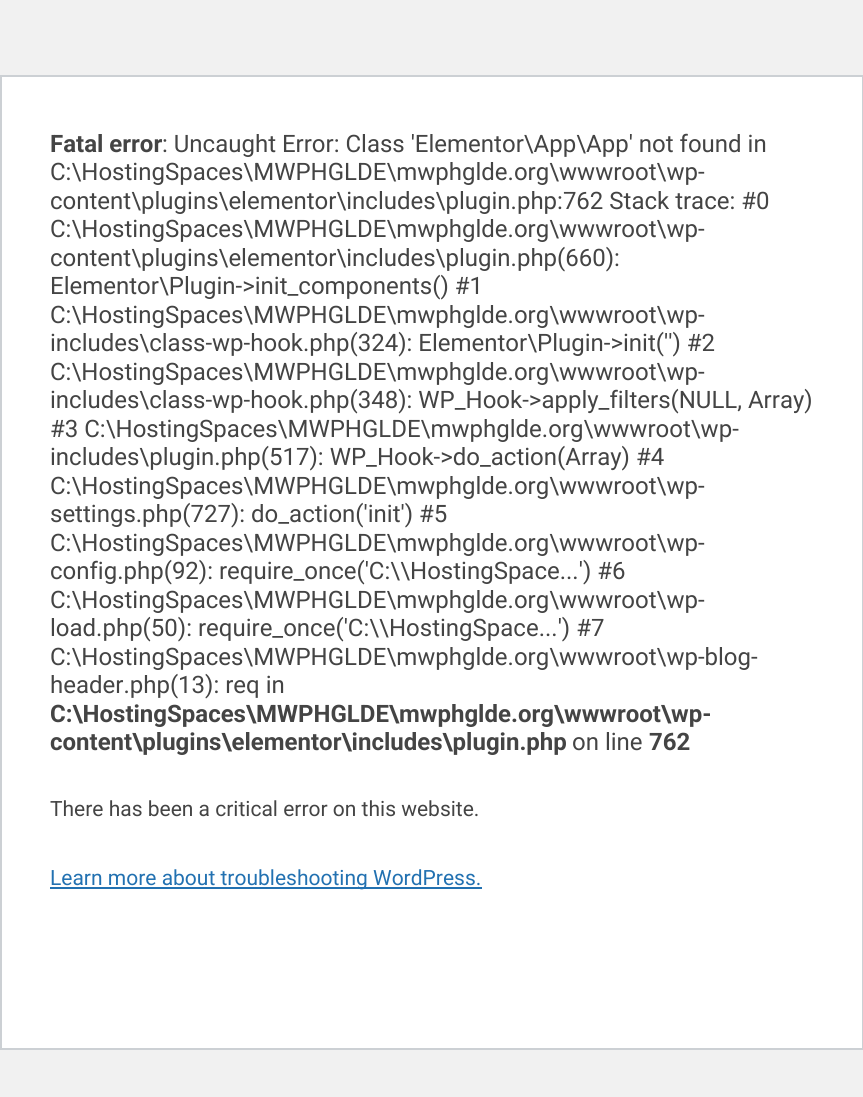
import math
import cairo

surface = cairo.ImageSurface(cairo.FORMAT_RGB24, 863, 1097)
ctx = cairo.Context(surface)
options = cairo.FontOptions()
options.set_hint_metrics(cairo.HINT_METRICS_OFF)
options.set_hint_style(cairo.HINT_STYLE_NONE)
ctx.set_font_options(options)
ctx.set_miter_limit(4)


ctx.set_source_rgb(0.945, 0.945, 0.945)
ctx.paint()
ctx.set_source_rgb(1, 1, 1)
ctx.rectangle(1, 76, 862, 973)
ctx.fill_preserve()
ctx.set_source_rgb(0.8, 0.816, 0.831)
ctx.stroke()
ctx.select_font_face("Roboto", cairo.FONT_SLANT_NORMAL, cairo.FONT_WEIGHT_BOLD)
ctx.set_font_size(24)
ctx.set_source_rgb(0.267, 0.267, 0.267)
ctx.move_to(50, 152)
ctx.show_text("Fatal error")
ctx.select_font_face("Roboto")
ctx.move_to(162, 152)
ctx.show_text(": Uncaught Error: Class 'Elementor\\App\\App' not found in")
ctx.move_to(50, 180)
ctx.show_text("C:\\HostingSpaces\\MWPHGLDE\\mwphglde.org\\wwwroot\\wp-")
ctx.move_to(50, 209)
ctx.show_text("content\\plugins\\elementor\\includes\\plugin.php:762 Stack trace: #0")
ctx.move_to(50, 237)
ctx.show_text("C:\\HostingSpaces\\MWPHGLDE\\mwphglde.org\\wwwroot\\wp-")
ctx.move_to(50, 266)
ctx.show_text("content\\plugins\\elementor\\includes\\plugin.php(660):")
ctx.move_to(50, 294)
ctx.show_text("Elementor\\Plugin->init_components() #1")
ctx.move_to(50, 323)
ctx.show_text("C:\\HostingSpaces\\MWPHGLDE\\mwphglde.org\\wwwroot\\wp-")
ctx.move_to(50, 351)
ctx.show_text("includes\\class-wp-hook.php(324): Elementor\\Plugin->init('') #2")
ctx.move_to(50, 380)
ctx.show_text("C:\\HostingSpaces\\MWPHGLDE\\mwphglde.org\\wwwroot\\wp-")
ctx.move_to(50, 408)
ctx.show_text("includes\\class-wp-hook.php(348): WP_Hook->apply_filters(NULL, Array)")
ctx.move_to(50, 437)
ctx.show_text("#3 C:\\HostingSpaces\\MWPHGLDE\\mwphglde.org\\wwwroot\\wp-")
ctx.move_to(50, 465)
ctx.show_text("includes\\plugin.php(517): WP_Hook->do_action(Array) #4")
ctx.move_to(50, 494)
ctx.show_text("C:\\HostingSpaces\\MWPHGLDE\\mwphglde.org\\wwwroot\\wp-")
ctx.move_to(50, 522)
ctx.show_text("settings.php(727): do_action('init') #5")
ctx.move_to(50, 551)
ctx.show_text("C:\\HostingSpaces\\MWPHGLDE\\mwphglde.org\\wwwroot\\wp-")
ctx.move_to(50, 579)
ctx.show_text("config.php(92): require_once('C:\\\\HostingSpace...') #6")
ctx.move_to(50, 608)
ctx.show_text("C:\\HostingSpaces\\MWPHGLDE\\mwphglde.org\\wwwroot\\wp-")
ctx.move_to(50, 636)
ctx.show_text("load.php(50): require_once('C:\\\\HostingSpace...') #7")
ctx.move_to(50, 665)
ctx.show_text("C:\\HostingSpaces\\MWPHGLDE\\mwphglde.org\\wwwroot\\wp-blog-")
ctx.move_to(50, 693)
ctx.show_text("header.php(13): req in")
ctx.select_font_face("Roboto", cairo.FONT_SLANT_NORMAL, cairo.FONT_WEIGHT_BOLD)
ctx.move_to(50, 722)
ctx.show_text("C:\\HostingSpaces\\MWPHGLDE\\mwphglde.org\\wwwroot\\wp-")
ctx.move_to(50, 750)
ctx.show_text("content\\plugins\\elementor\\includes\\plugin.php")
ctx.select_font_face("Roboto")
ctx.move_to(572, 750)
ctx.show_text("on line")
ctx.select_font_face("Roboto", cairo.FONT_SLANT_NORMAL, cairo.FONT_WEIGHT_BOLD)
ctx.move_to(649, 750)
ctx.show_text("762")
ctx.select_font_face("Roboto")
ctx.set_font_size(21)
ctx.move_to(50, 816)
ctx.show_text("There has been a critical error on this website.")
ctx.set_source_rgb(0.133, 0.443, 0.694)
ctx.rectangle(50, 887, 432, 2)
ctx.fill()
ctx.move_to(50, 885)
ctx.show_text("Learn more about troubleshooting WordPress.")
surface.write_to_png("page.png")
